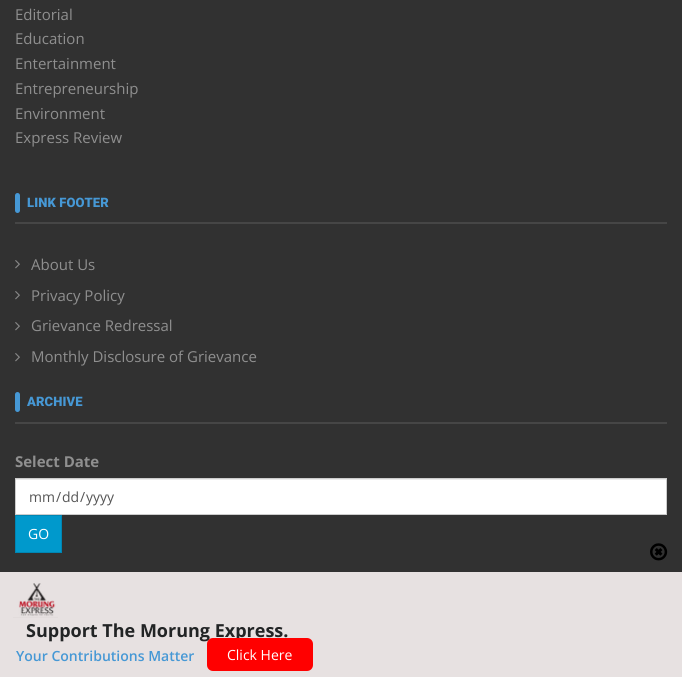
import math
import cairo

surface = cairo.ImageSurface(cairo.FORMAT_RGB24, 682, 677)
ctx = cairo.Context(surface)
options = cairo.FontOptions()
options.set_hint_metrics(cairo.HINT_METRICS_OFF)
options.set_hint_style(cairo.HINT_STYLE_NONE)
ctx.set_font_options(options)
ctx.set_miter_limit(4)


def spaced_text(x, y, s, letter, word):
    ctx.move_to(x, y)
    for ch in s:
        ctx.show_text(ch)
        ctx.rel_move_to(letter + word * (ch == ' '), 0)


def round_rect(x, y, w, h, r):
    ctx.new_sub_path()
    for i, (u, v) in enumerate([(x + w - r, y + h - r), (x + r, y + h - r), (x + r, y + r), (x + w - r, y + r)]):
        ctx.arc(u, v, r, i * math.pi / 2, (i + 1) * math.pi / 2)
    ctx.close_path()


def picture(path, x, y, w, h):
    ctx.save()
    ctx.set_source_surface(cairo.ImageSurface.create_from_png(path), x, y)
    ctx.rectangle(x, y, w, h)
    ctx.fill()
    ctx.restore()


ctx.set_source_rgb(0.192, 0.192, 0.192)
ctx.paint()
ctx.select_font_face("Open Sans")
ctx.set_font_size(15)
ctx.set_source_rgb(0.561, 0.561, 0.561)
ctx.move_to(15, 20)
ctx.show_text("Editorial")
ctx.move_to(15, 44)
ctx.show_text("Education")
ctx.move_to(15, 69)
ctx.show_text("Entertainment")
ctx.move_to(15, 94)
ctx.show_text("Entrepreneurship")
ctx.move_to(15, 119)
ctx.show_text("Environment")
ctx.move_to(15, 143)
ctx.show_text("Express Review")
ctx.set_source_rgb(0.275, 0.275, 0.275)
ctx.rectangle(15, 222, 652, 2)
ctx.fill()
ctx.set_source_rgb(0.275, 0.596, 0.835)
round_rect(15, 193, 5, 20, 2.5)
ctx.fill()
ctx.select_font_face("Roboto Black")
ctx.set_font_size(13)
spaced_text(27, 207, "LINK FOOTER", 0.1, 0)
picture("img1.png", 15, 260, 5, 9)
ctx.select_font_face("Open Sans")
ctx.set_font_size(15)
ctx.set_source_rgb(0.561, 0.561, 0.561)
ctx.move_to(31, 270)
ctx.show_text("About Us")
picture("img1.png", 15, 291, 5, 9)
ctx.move_to(31, 301)
ctx.show_text("Privacy Policy")
picture("img1.png", 15, 322, 5, 9)
ctx.move_to(31, 331)
ctx.show_text("Grievance Redressal")
picture("img1.png", 15, 353, 5, 9)
ctx.move_to(31, 362)
ctx.show_text("Monthly Disclosure of Grievance")
ctx.set_source_rgb(0.275, 0.275, 0.275)
ctx.rectangle(15, 422, 652, 2)
ctx.fill()
ctx.set_source_rgb(0.275, 0.596, 0.835)
round_rect(15, 392, 5, 20, 2.5)
ctx.fill()
ctx.select_font_face("Roboto Black")
ctx.set_font_size(13)
spaced_text(27, 406, "ARCHIVE", 0.1, 0)
ctx.select_font_face("Open Sans", cairo.FONT_SLANT_NORMAL, cairo.FONT_WEIGHT_BOLD)
ctx.set_font_size(15)
ctx.set_source_rgb(0.561, 0.561, 0.561)
ctx.move_to(15, 467)
ctx.show_text("Select Date")
ctx.set_source_rgb(1, 1, 1)
ctx.rectangle(16, 480, 650, 34)
ctx.fill()
ctx.set_source_rgb(0.925, 0.925, 0.925)
ctx.rectangle(16, 479, 650, 1)
ctx.fill()
ctx.rectangle(15.5, 478.5, 651, 36)
ctx.set_source_rgb(0.8, 0.8, 0.8)
ctx.set_line_width(1)
ctx.stroke()
ctx.select_font_face("Open Sans")
ctx.set_font_size(14)
ctx.set_source_rgb(0.333, 0.333, 0.333)
ctx.move_to(29, 502)
ctx.show_text("mm")
ctx.move_to(56, 502)
ctx.show_text("/")
ctx.move_to(62, 502)
ctx.show_text("dd")
ctx.move_to(80, 502)
ctx.show_text("/")
ctx.move_to(86, 502)
ctx.show_text("yyyy")
ctx.set_source_rgb(0, 0.6, 0.8)
ctx.rectangle(15.5, 515.5, 46, 37)
ctx.fill_preserve()
ctx.set_source_rgb(0, 0.525, 0.702)
ctx.stroke()
ctx.set_source_rgb(1, 1, 1)
ctx.move_to(28, 539)
ctx.show_text("GO")
ctx.set_source_rgb(0.906, 0.882, 0.882)
ctx.rectangle(0, 572, 682, 105)
ctx.fill()
picture("img2.png", 650, 543, 18, 18)
picture("img3.png", 13, 583, 45, 35)
ctx.select_font_face("Open Sans", cairo.FONT_SLANT_NORMAL, cairo.FONT_WEIGHT_BOLD)
ctx.set_font_size(18)
ctx.set_source_rgb(0.133, 0.141, 0.145)
ctx.move_to(26, 637)
ctx.show_text("Support The Morung Express.")
ctx.select_font_face("Open Sans SemiBold")
ctx.set_font_size(14)
ctx.set_source_rgb(0.275, 0.596, 0.835)
ctx.move_to(16, 661)
ctx.show_text("Your Contributions Matter")
ctx.set_source_rgb(1, 0, 0)
round_rect(207, 638, 106, 33, 6)
ctx.fill()
ctx.select_font_face("Open Sans")
ctx.set_source_rgb(1, 1, 1)
ctx.move_to(227, 660)
ctx.show_text("Click Here")
surface.write_to_png("page.png")
